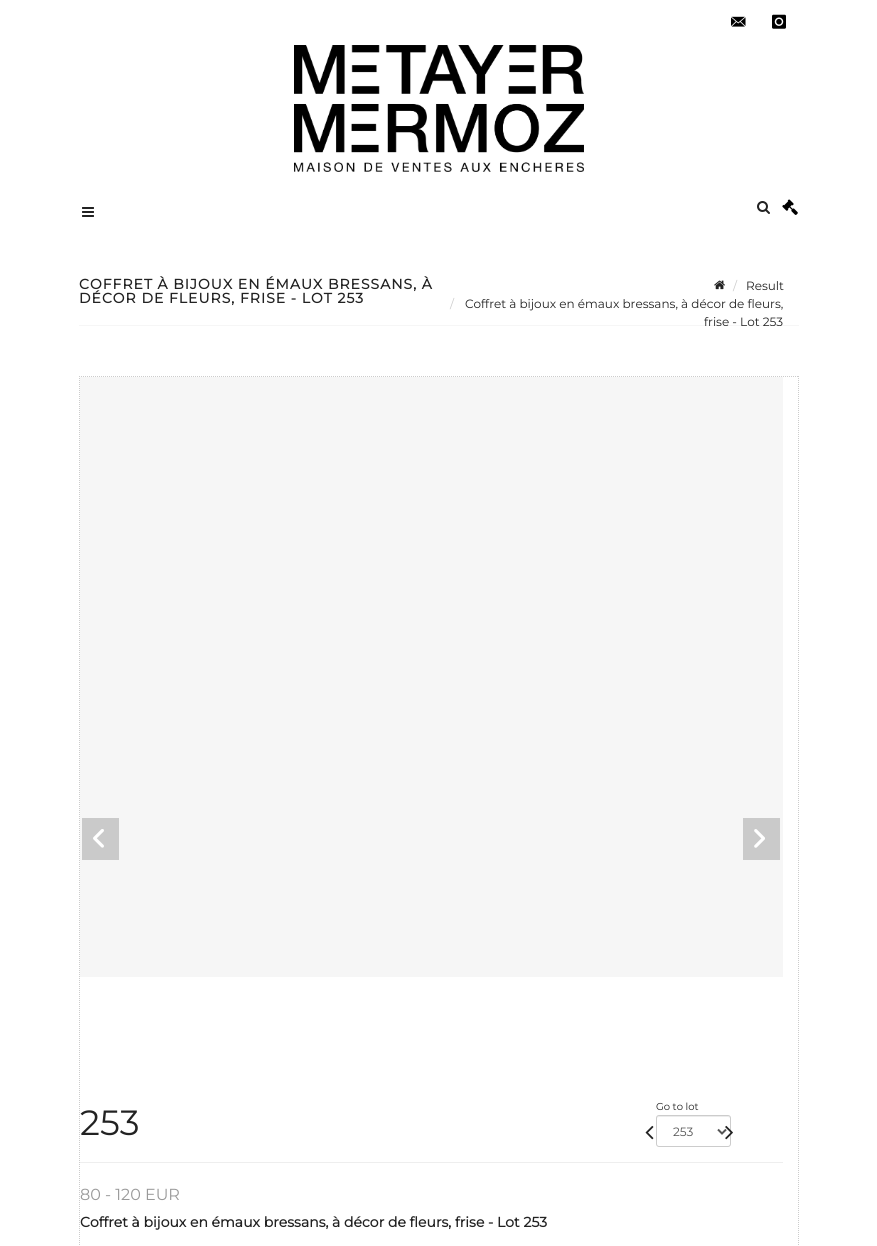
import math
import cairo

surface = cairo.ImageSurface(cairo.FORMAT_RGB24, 877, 1246)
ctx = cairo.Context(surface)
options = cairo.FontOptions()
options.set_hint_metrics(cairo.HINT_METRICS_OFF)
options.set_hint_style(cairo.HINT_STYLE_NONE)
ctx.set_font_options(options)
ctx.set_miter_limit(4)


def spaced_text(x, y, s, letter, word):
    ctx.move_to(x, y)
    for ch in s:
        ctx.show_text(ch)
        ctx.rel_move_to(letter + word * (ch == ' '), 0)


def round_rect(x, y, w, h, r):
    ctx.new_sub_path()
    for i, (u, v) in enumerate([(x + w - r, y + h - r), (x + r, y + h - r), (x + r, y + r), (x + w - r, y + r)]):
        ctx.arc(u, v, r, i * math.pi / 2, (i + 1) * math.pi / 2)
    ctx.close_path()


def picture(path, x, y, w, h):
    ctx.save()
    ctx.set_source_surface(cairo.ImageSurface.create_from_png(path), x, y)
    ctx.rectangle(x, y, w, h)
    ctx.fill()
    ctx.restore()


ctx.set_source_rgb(1, 1, 1)
ctx.paint()
picture("img1.png", 731, 16, 15, 11)
picture("img2.png", 772, 14, 14, 15)
picture("img3.png", 294, 45, 290, 127)
picture("img4.png", 82, 207, 12, 10)
picture("img5.png", 757, 201, 13, 13)
picture("img6.png", 782, 199, 16, 16)
ctx.set_source_rgb(0.961, 0.961, 0.961)
ctx.rectangle(79, 325, 720, 1)
ctx.fill()
ctx.select_font_face("Montserrat", cairo.FONT_SLANT_NORMAL, cairo.FONT_WEIGHT_BOLD)
ctx.set_font_size(14)
ctx.set_source_rgb(0.133, 0.133, 0.133)
spaced_text(79, 289, "COFFRET À BIJOUX EN ÉMAUX BRESSANS, À", 1, 0)
spaced_text(79, 303, "DÉCOR DE FLEURS, FRISE - LOT 253", 1, 0)
picture("img7.png", 714, 280, 11, 10)
ctx.select_font_face("Montserrat Thin")
ctx.set_font_size(12)
ctx.set_source_rgb(0.8, 0.8, 0.8)
ctx.move_to(733, 290)
ctx.show_text("/")
ctx.set_source_rgb(0.133, 0.133, 0.133)
ctx.move_to(746, 290)
ctx.show_text("Result")
ctx.set_source_rgb(0.8, 0.8, 0.8)
ctx.move_to(450, 308)
ctx.show_text("/")
ctx.set_source_rgb(0.133, 0.133, 0.133)
ctx.move_to(465, 308)
ctx.show_text("Coffret à bijoux en émaux bressans, à décor de fleurs,")
ctx.move_to(704, 326)
ctx.show_text("frise - Lot 253")
ctx.set_source_rgb(1, 1, 1)
ctx.rectangle(719, 326, 62, 1)
ctx.fill()
ctx.new_path()
ctx.move_to(79, 376.5)
ctx.line_to(799, 376.5)
ctx.set_source_rgb(0.8, 0.8, 0.8)
ctx.set_line_width(1)
ctx.set_dash([1, 1])
ctx.stroke()
ctx.new_path()
ctx.move_to(798.5, 376)
ctx.line_to(798.5, 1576)
ctx.stroke()
ctx.new_path()
ctx.move_to(79.5, 376)
ctx.line_to(79.5, 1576)
ctx.stroke()
ctx.set_source_rgb(0.961, 0.961, 0.961)
ctx.rectangle(80, 377, 703, 600)
ctx.fill()
ctx.set_source_rgb(0.792, 0.792, 0.792)
ctx.rectangle(82, 818, 37, 42)
ctx.fill()
picture("img8.png", 93, 829, 11, 19)
ctx.rectangle(743, 818, 37, 42)
ctx.fill()
picture("img9.png", 754, 829, 11, 19)
ctx.set_font_size(35)
ctx.set_source_rgb(0.133, 0.133, 0.133)
ctx.move_to(80, 1135)
ctx.show_text("253")
picture("img10.png", 645, 1125, 9, 15)
ctx.set_font_size(10)
ctx.move_to(656, 1110)
ctx.show_text("Go to lot")
ctx.set_source_rgb(0.925, 0.925, 0.925)
ctx.new_path()
ctx.move_to(659, 1117)
ctx.line_to(728, 1117)
ctx.curve_to(729, 1117, 730, 1118, 730, 1119)
ctx.curve_to(730, 1113, 720, 1116, 716, 1116)
ctx.line_to(670, 1116)
ctx.curve_to(667, 1116, 657, 1113, 657, 1119)
ctx.curve_to(657, 1118, 658, 1117, 659, 1117)
ctx.close_path()
ctx.fill()
round_rect(656.5, 1115.5, 74, 31, 2.5)
ctx.set_source_rgb(0.8, 0.8, 0.8)
ctx.set_dash([])
ctx.stroke()
ctx.new_path()
ctx.move_to(718, 1129.5)
ctx.line_to(722, 1133.5)
ctx.line_to(726, 1129.5)
ctx.set_source_rgb(0.333, 0.333, 0.333)
ctx.set_line_width(2)
ctx.stroke()
ctx.set_font_size(12)
ctx.move_to(673, 1136)
ctx.show_text("253")
picture("img11.png", 725, 1125, 8, 15)
ctx.set_source_rgb(0.933, 0.933, 0.933)
ctx.rectangle(80, 1162, 703, 1)
ctx.fill()
ctx.set_font_size(16)
ctx.set_source_rgb(0.6, 0.6, 0.6)
ctx.move_to(80, 1200)
ctx.show_text("80 - 120 EUR")
ctx.select_font_face("Montserrat", cairo.FONT_SLANT_NORMAL, cairo.FONT_WEIGHT_BOLD)
ctx.set_font_size(14)
ctx.set_source_rgb(0.133, 0.133, 0.133)
ctx.move_to(80, 1227)
ctx.show_text("Coffret à bijoux en émaux bressans, à décor de fleurs, frise - Lot 253")
surface.write_to_png("page.png")
